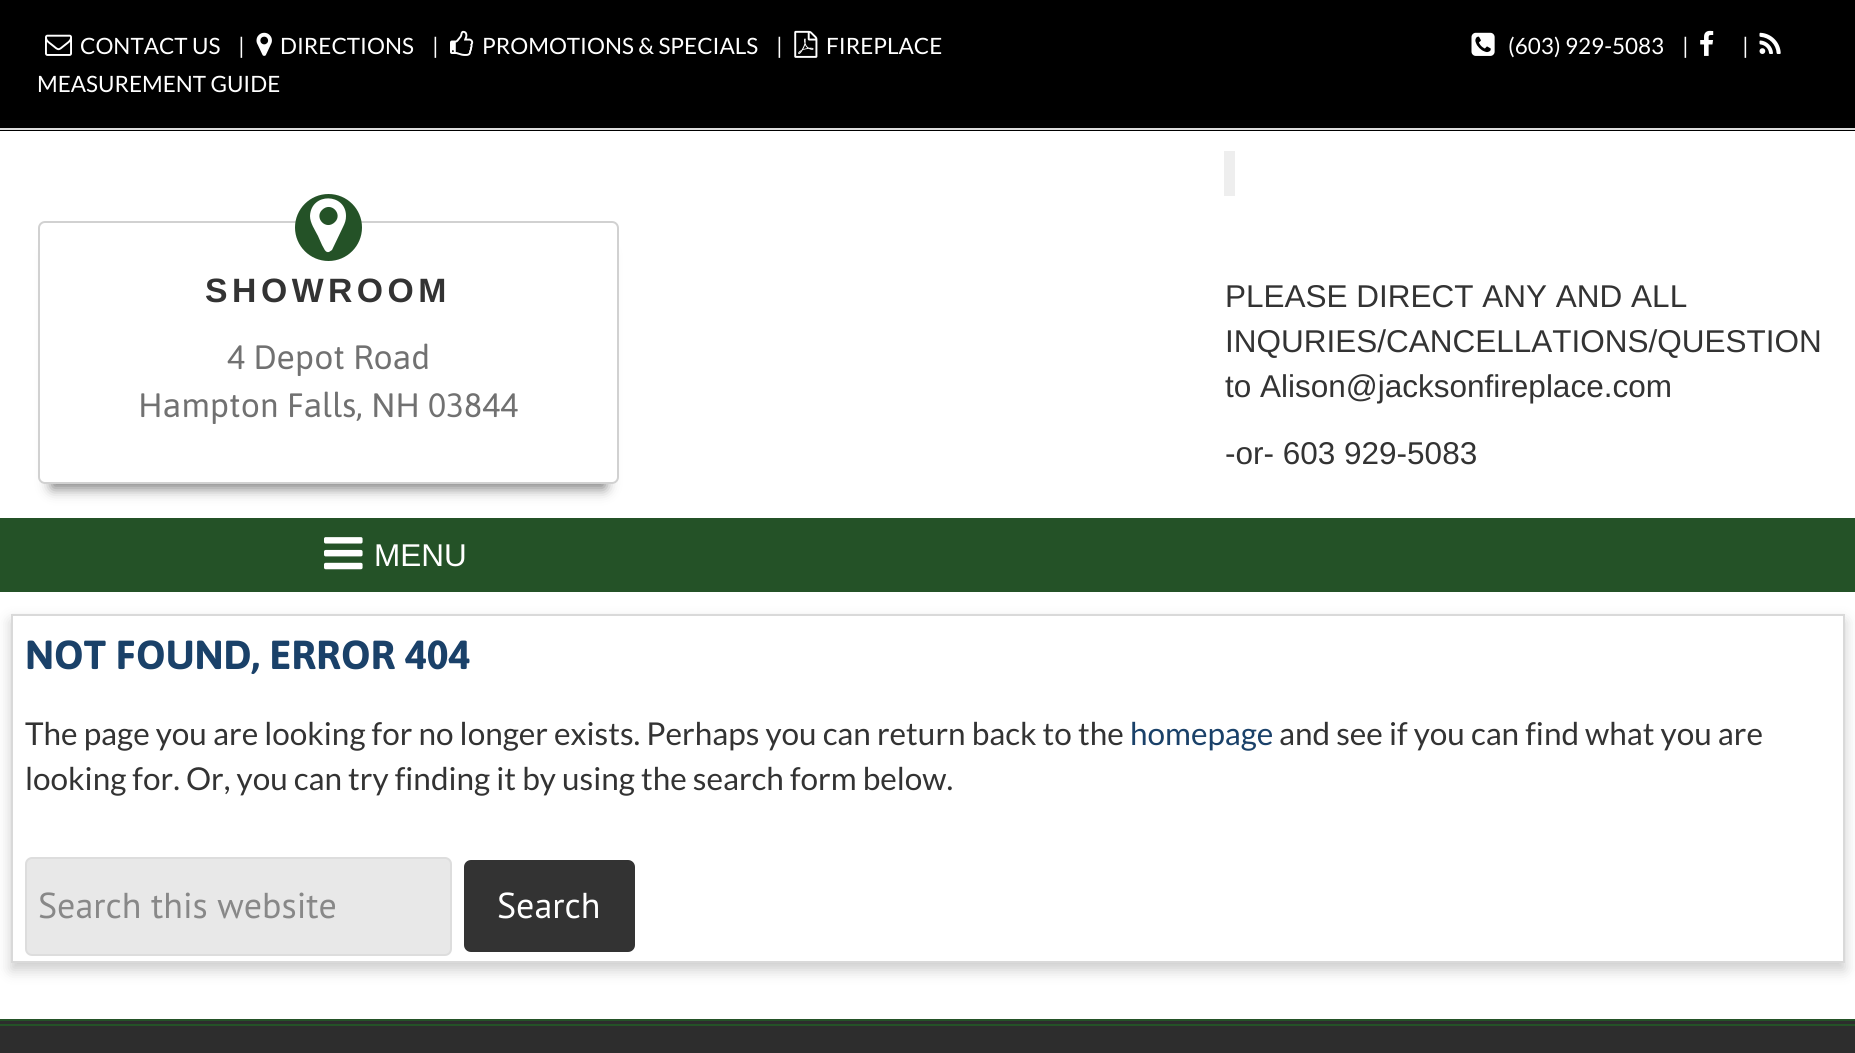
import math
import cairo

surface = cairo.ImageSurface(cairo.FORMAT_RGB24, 1855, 1053)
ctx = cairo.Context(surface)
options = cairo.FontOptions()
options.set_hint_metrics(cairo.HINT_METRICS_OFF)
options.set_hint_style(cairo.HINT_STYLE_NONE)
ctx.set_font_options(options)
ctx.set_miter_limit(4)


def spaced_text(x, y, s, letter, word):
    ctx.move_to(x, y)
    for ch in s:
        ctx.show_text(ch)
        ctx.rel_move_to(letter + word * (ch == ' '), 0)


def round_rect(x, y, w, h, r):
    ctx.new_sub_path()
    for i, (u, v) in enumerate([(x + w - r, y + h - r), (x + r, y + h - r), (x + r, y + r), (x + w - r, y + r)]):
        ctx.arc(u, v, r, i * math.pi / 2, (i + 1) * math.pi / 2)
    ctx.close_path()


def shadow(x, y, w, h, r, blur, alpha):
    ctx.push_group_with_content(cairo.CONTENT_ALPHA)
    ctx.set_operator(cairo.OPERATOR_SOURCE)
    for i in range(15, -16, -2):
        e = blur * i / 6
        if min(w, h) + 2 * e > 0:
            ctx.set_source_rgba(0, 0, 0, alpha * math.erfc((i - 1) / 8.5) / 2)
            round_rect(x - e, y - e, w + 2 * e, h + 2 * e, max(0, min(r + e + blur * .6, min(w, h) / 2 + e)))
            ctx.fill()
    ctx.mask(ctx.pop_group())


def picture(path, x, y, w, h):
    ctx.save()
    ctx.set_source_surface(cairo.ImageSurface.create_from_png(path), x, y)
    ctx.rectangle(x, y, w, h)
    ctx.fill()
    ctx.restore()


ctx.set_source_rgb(1, 1, 1)
ctx.paint()
ctx.set_source_rgb(0, 0, 0)
ctx.rectangle(0, 0, 1855, 131)
ctx.fill()
ctx.set_source_rgb(0.867, 0.867, 0.867)
ctx.rectangle(0, 128, 1855, 2)
ctx.fill()
ctx.select_font_face("Lato")
ctx.set_font_size(22.5)
ctx.set_source_rgb(1, 1, 1)
ctx.move_to(776, 54)
ctx.show_text("|")
picture("img1.png", 794, 30, 24, 28)
ctx.move_to(826, 54)
ctx.show_text("FIREPLACE")
ctx.move_to(37, 92)
ctx.show_text("MEASUREMENT GUIDE")
picture("img2.png", 45, 34, 27, 22)
ctx.move_to(80, 54)
ctx.show_text("CONTACT US")
ctx.move_to(238, 54)
ctx.show_text("|")
picture("img3.png", 256, 32, 16, 24)
ctx.move_to(280, 54)
ctx.show_text("DIRECTIONS")
ctx.move_to(432, 54)
ctx.show_text("|")
picture("img4.png", 450, 30, 24, 26)
ctx.move_to(482, 54)
ctx.show_text("PROMOTIONS & SPECIALS")
picture("img5.png", 1471, 32, 24, 24)
ctx.move_to(1508, 54)
ctx.show_text("(603) 929-5083")
ctx.move_to(1682, 54)
ctx.show_text("|")
picture("img6.png", 1700, 30, 14, 26)
ctx.move_to(1742, 54)
ctx.show_text("|")
picture("img7.png", 1759, 32, 22, 22)
ctx.set_source_rgb(0.467, 0.467, 0.467)
shadow(52, 252, 553, 236, 0, 7, 1)
ctx.set_source_rgb(1, 1, 1)
round_rect(38, 221, 581, 263, 7)
ctx.fill()
round_rect(39, 222, 579, 261, 6)
ctx.set_source_rgba(0.643, 0.643, 0.643, 0.5)
ctx.stroke()
ctx.set_source_rgb(0.141, 0.322, 0.153)
ctx.arc(328.5, 227.5, 33.5, 0, 2 * math.pi)
ctx.fill()
ctx.set_source_rgb(1, 1, 1)
ctx.new_path()
ctx.move_to(335, 222)
ctx.curve_to(343, 214, 331, 201, 322, 210)
ctx.curve_to(314, 218, 326, 231, 335, 222)
ctx.close_path()
ctx.move_to(346, 216)
ctx.curve_to(346, 220, 345, 223, 343, 227)
ctx.line_to(332, 250)
ctx.line_to(329, 252)
ctx.curve_to(325, 253, 324, 248, 322, 245)
ctx.line_to(318, 236)
ctx.curve_to(315, 230, 310, 223, 310, 216)
ctx.curve_to(311, 192, 346, 193, 346, 216)
ctx.close_path()
ctx.fill()
ctx.select_font_face("Liberation Sans", cairo.FONT_SLANT_NORMAL, cairo.FONT_WEIGHT_BOLD)
ctx.set_font_size(33.75)
ctx.set_source_rgb(0.2, 0.2, 0.2)
spaced_text(205, 302, "SHOWROOM", 4.5, 0)
ctx.select_font_face("Asap")
ctx.set_source_rgb(0.443, 0.443, 0.443)
ctx.move_to(227, 369)
ctx.show_text("4 Depot Road")
ctx.move_to(138, 417)
ctx.show_text("Hampton Falls, NH 03844")
ctx.set_source_rgb(0.933, 0.933, 0.933)
ctx.rectangle(1224, 151, 11, 45)
ctx.fill()
ctx.select_font_face("Liberation Sans")
ctx.set_font_size(31.5)
ctx.set_source_rgb(0.2, 0.2, 0.2)
ctx.move_to(1225, 307)
ctx.show_text("PLEASE DIRECT ANY AND ALL")
ctx.move_to(1225, 352)
ctx.show_text("INQURIES/CANCELLATIONS/QUESTION")
ctx.move_to(1225, 397)
ctx.show_text("to Alison@jacksonfireplace.com")
ctx.move_to(1225, 464)
ctx.show_text("-or- 603 929-5083")
ctx.set_source_rgb(0.141, 0.322, 0.153)
ctx.rectangle(0, 518, 1855, 74)
ctx.fill()
picture("img8.png", 324, 537, 39, 33)
ctx.set_source_rgb(1, 1, 1)
ctx.move_to(374, 566)
ctx.show_text("MENU")
ctx.set_source_rgb(0, 0, 0)
shadow(11, 621, 1834, 349, 0, 7, 0.2)
ctx.set_source_rgb(1, 1, 1)
ctx.rectangle(12, 615, 1832, 347)
ctx.fill_preserve()
ctx.set_source_rgb(0.851, 0.851, 0.851)
ctx.stroke()
ctx.select_font_face("Asap", cairo.FONT_SLANT_NORMAL, cairo.FONT_WEIGHT_BOLD)
ctx.set_font_size(40.5)
ctx.set_source_rgb(0.102, 0.255, 0.412)
ctx.move_to(25, 669)
ctx.show_text("NOT FOUND, ERROR 404")
ctx.select_font_face("Lato")
ctx.set_font_size(31.5)
ctx.set_source_rgb(0.2, 0.2, 0.2)
ctx.move_to(25, 745)
ctx.show_text("The page you are looking for no longer exists. Perhaps you can return back to the")
ctx.set_source_rgb(0.102, 0.255, 0.412)
ctx.move_to(1130, 745)
ctx.show_text("homepage")
ctx.set_source_rgb(0.2, 0.2, 0.2)
ctx.move_to(1279, 745)
ctx.show_text("and see if you can find what you are")
ctx.move_to(25, 790)
ctx.show_text("looking for. Or, you can try finding it by using the search form below.")
ctx.set_source_rgb(0.91, 0.91, 0.91)
round_rect(26, 858, 425, 97, 6)
ctx.fill_preserve()
ctx.set_source_rgb(0.867, 0.867, 0.867)
ctx.stroke()
ctx.select_font_face("PT Sans")
ctx.set_font_size(36)
ctx.set_source_rgb(0.533, 0.533, 0.533)
ctx.move_to(38, 918)
ctx.show_text("Search this website")
ctx.set_source_rgb(0.2, 0.2, 0.2)
round_rect(465, 861, 169, 90, 6)
ctx.fill_preserve()
ctx.stroke()
ctx.set_source_rgb(1, 1, 1)
ctx.move_to(497, 918)
ctx.show_text("Search")
ctx.set_source_rgb(0.176, 0.176, 0.176)
ctx.rectangle(0, 1021, 1855, 32)
ctx.fill()
ctx.set_source_rgb(0.141, 0.322, 0.153)
ctx.rectangle(0, 1019, 1855, 2)
ctx.fill()
ctx.rectangle(0, 1024, 1855, 2)
ctx.fill()
surface.write_to_png("page.png")
